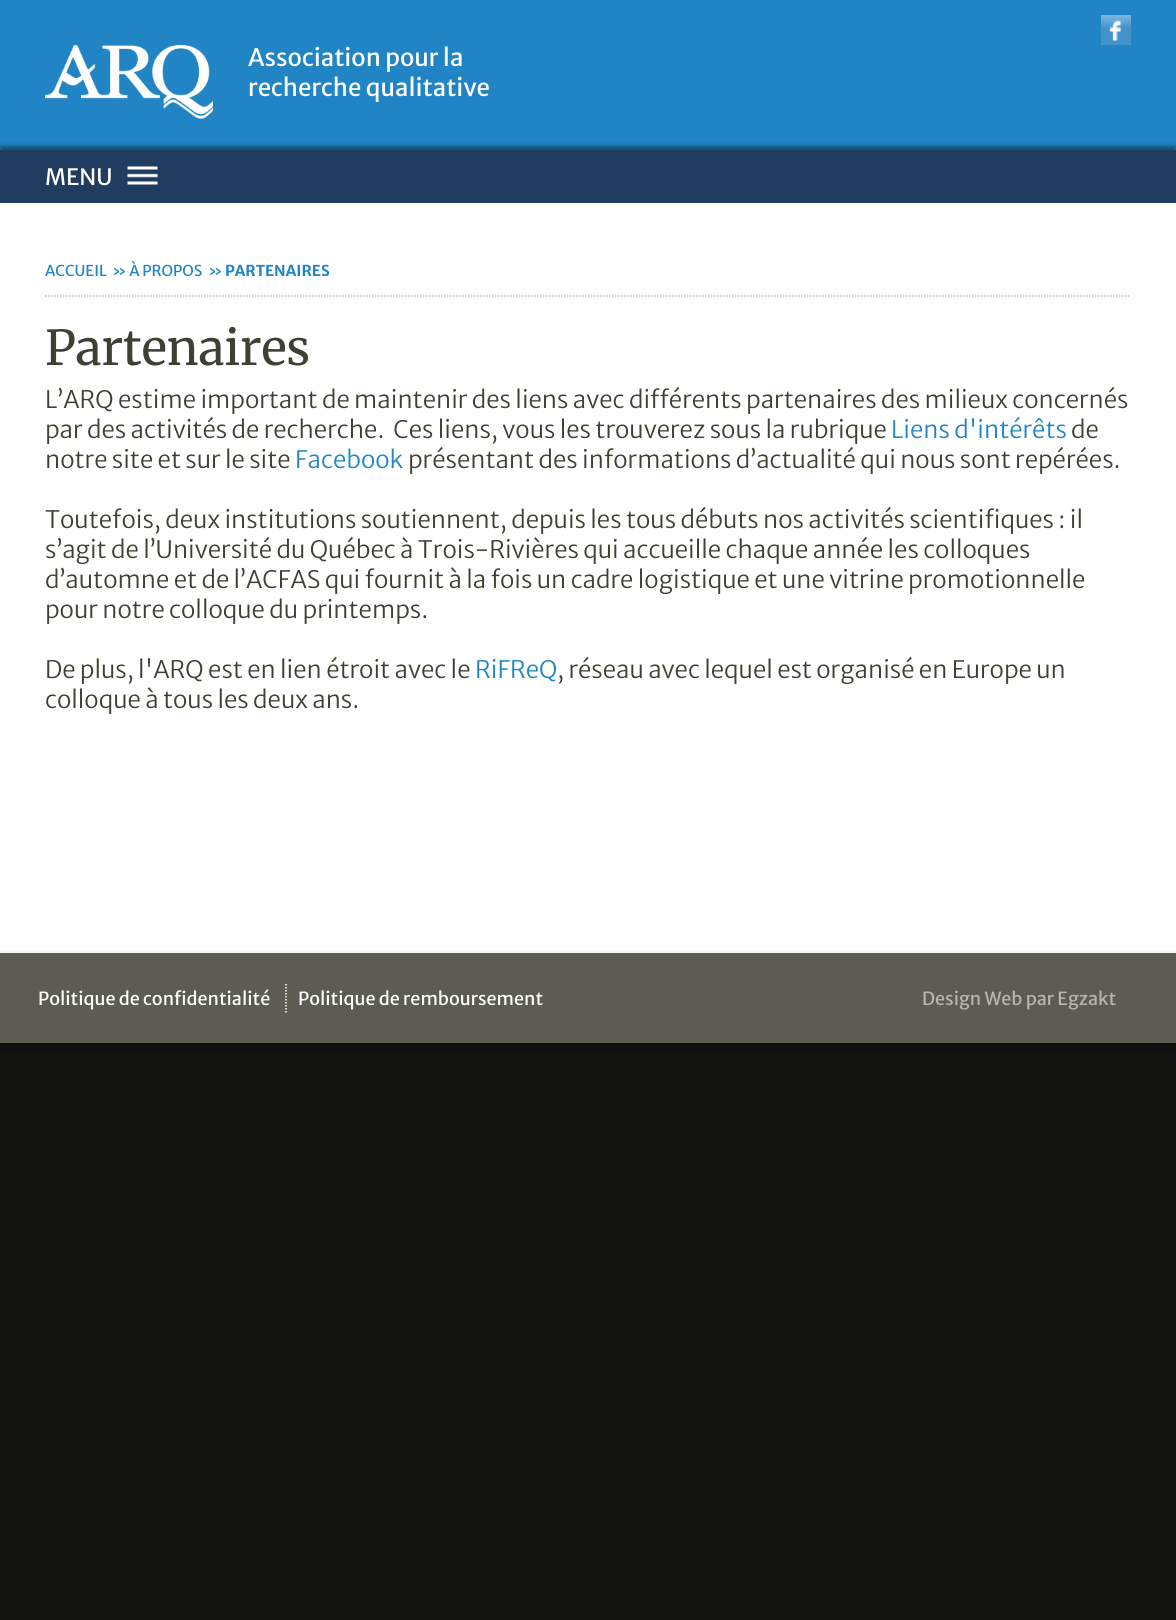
import math
import cairo

surface = cairo.ImageSurface(cairo.FORMAT_RGB24, 1176, 1620)
ctx = cairo.Context(surface)
options = cairo.FontOptions()
options.set_hint_metrics(cairo.HINT_METRICS_OFF)
options.set_hint_style(cairo.HINT_STYLE_NONE)
ctx.set_font_options(options)
ctx.set_miter_limit(4)


def round_rect(x, y, w, h, r):
    ctx.new_sub_path()
    for i, (u, v) in enumerate([(x + w - r, y + h - r), (x + r, y + h - r), (x + r, y + r), (x + w - r, y + r)]):
        ctx.arc(u, v, r, i * math.pi / 2, (i + 1) * math.pi / 2)
    ctx.close_path()


def shadow(x, y, w, h, r, blur, alpha):
    ctx.push_group_with_content(cairo.CONTENT_ALPHA)
    ctx.set_operator(cairo.OPERATOR_SOURCE)
    for i in range(15, -16, -2):
        e = blur * i / 6
        if min(w, h) + 2 * e > 0:
            ctx.set_source_rgba(0, 0, 0, alpha * math.erfc((i - 1) / 8.5) / 2)
            round_rect(x - e, y - e, w + 2 * e, h + 2 * e, max(0, min(r + e + blur * .6, min(w, h) / 2 + e)))
            ctx.fill()
    ctx.mask(ctx.pop_group())


def picture(path, x, y, w, h):
    ctx.save()
    ctx.set_source_surface(cairo.ImageSurface.create_from_png(path), x, y)
    ctx.rectangle(x, y, w, h)
    ctx.fill()
    ctx.restore()


ctx.set_source_rgb(0.078, 0.078, 0.071)
ctx.paint()
ctx.set_source_rgb(0.129, 0.522, 0.773)
ctx.rectangle(0, 0, 1176, 150)
ctx.fill()
picture("img1.png", 1101, 15, 30, 30)
picture("img2.png", 45, 45, 168, 74)
ctx.select_font_face("Merriweather Sans")
ctx.set_font_size(24)
ctx.set_source_rgb(1, 1, 1)
ctx.move_to(248, 66)
ctx.show_text("Association pour la")
ctx.move_to(248, 96)
ctx.show_text("recherche qualitative")
ctx.rectangle(0, 203, 1176, 750)
ctx.fill()
ctx.set_source_rgb(0, 0, 0)
shadow(0, 146, 1176, 52, 0, 2, 0.4)
ctx.set_source_rgb(0.129, 0.235, 0.38)
ctx.rectangle(0, 150, 1176, 53)
ctx.fill()
picture("img3.png", 127, 166, 31, 19)
ctx.set_font_size(22.5)
ctx.set_source_rgb(1, 1, 1)
ctx.move_to(45, 185)
ctx.show_text("MENU")
ctx.new_path()
ctx.move_to(45, 296)
ctx.line_to(1131, 296)
ctx.set_source_rgb(0.745, 0.757, 0.718)
ctx.set_line_width(1.5)
ctx.set_dash([1.5, 1.5])
ctx.stroke()
ctx.set_font_size(15)
ctx.set_source_rgb(0.129, 0.522, 0.773)
ctx.move_to(45, 276)
ctx.show_text("ACCUEIL")
ctx.move_to(112, 276)
ctx.show_text("» À PROPOS")
ctx.move_to(208, 276)
ctx.show_text("»")
ctx.select_font_face("Merriweather Sans", cairo.FONT_SLANT_NORMAL, cairo.FONT_WEIGHT_BOLD)
ctx.move_to(225, 276)
ctx.show_text("PARTENAIRES")
ctx.select_font_face("Merriweather")
ctx.set_font_size(48)
ctx.set_source_rgb(0.251, 0.247, 0.2)
ctx.move_to(45, 365)
ctx.show_text("Partenaires")
ctx.select_font_face("Merriweather Sans Light")
ctx.set_font_size(24)
ctx.move_to(45, 408)
ctx.show_text("L’ARQ estime important de maintenir des liens avec différents partenaires des milieux concernés")
ctx.move_to(45, 438)
ctx.show_text("par des activités de recherche.  Ces liens, vous les trouverez sous la rubrique")
ctx.set_source_rgb(0.129, 0.522, 0.773)
ctx.move_to(891, 438)
ctx.show_text("Liens d'intérêts")
ctx.set_source_rgb(0.251, 0.247, 0.2)
ctx.move_to(1071, 438)
ctx.show_text("de")
ctx.move_to(45, 468)
ctx.show_text("notre site et sur le site")
ctx.set_source_rgb(0.129, 0.522, 0.773)
ctx.move_to(295, 468)
ctx.show_text("Facebook")
ctx.set_source_rgb(0.251, 0.247, 0.2)
ctx.move_to(408, 468)
ctx.show_text("présentant des informations d’actualité qui nous sont repérées.")
ctx.move_to(45, 528)
ctx.show_text("Toutefois, deux institutions soutiennent, depuis les tous débuts nos activités scientifiques : il")
ctx.move_to(45, 558)
ctx.show_text("s’agit de l’Université du Québec à Trois-Rivières qui accueille chaque année les colloques")
ctx.move_to(45, 588)
ctx.show_text("d’automne et de l’ACFAS qui fournit à la fois un cadre logistique et une vitrine promotionnelle")
ctx.move_to(45, 618)
ctx.show_text("pour notre colloque du printemps.")
ctx.move_to(45, 678)
ctx.show_text("De plus, l'ARQ est en lien étroit avec le")
ctx.set_source_rgb(0.129, 0.522, 0.773)
ctx.move_to(475, 678)
ctx.show_text("RiFReQ")
ctx.set_source_rgb(0.251, 0.247, 0.2)
ctx.move_to(557, 678)
ctx.show_text(", réseau avec lequel est organisé en Europe un")
ctx.move_to(45, 708)
ctx.show_text("colloque à tous les deux ans.")
ctx.set_source_rgb(0, 0, 0)
shadow(0, 960, 1176, 90, 0, 6, 0.4)
ctx.set_source_rgb(0.361, 0.361, 0.325)
ctx.rectangle(0, 953, 1176, 90)
ctx.fill()
ctx.new_path()
ctx.move_to(286, 984)
ctx.line_to(286, 1012.5)
ctx.set_source_rgb(1, 1, 1)
ctx.stroke()
ctx.select_font_face("Merriweather Sans")
ctx.set_font_size(18)
ctx.move_to(38, 1005)
ctx.show_text("Politique de confidentialité")
ctx.move_to(298, 1005)
ctx.show_text("Politique de remboursement")
ctx.set_source_rgb(0.71, 0.706, 0.69)
ctx.move_to(922, 1005)
ctx.show_text("Design Web par Egzakt")
surface.write_to_png("page.png")
